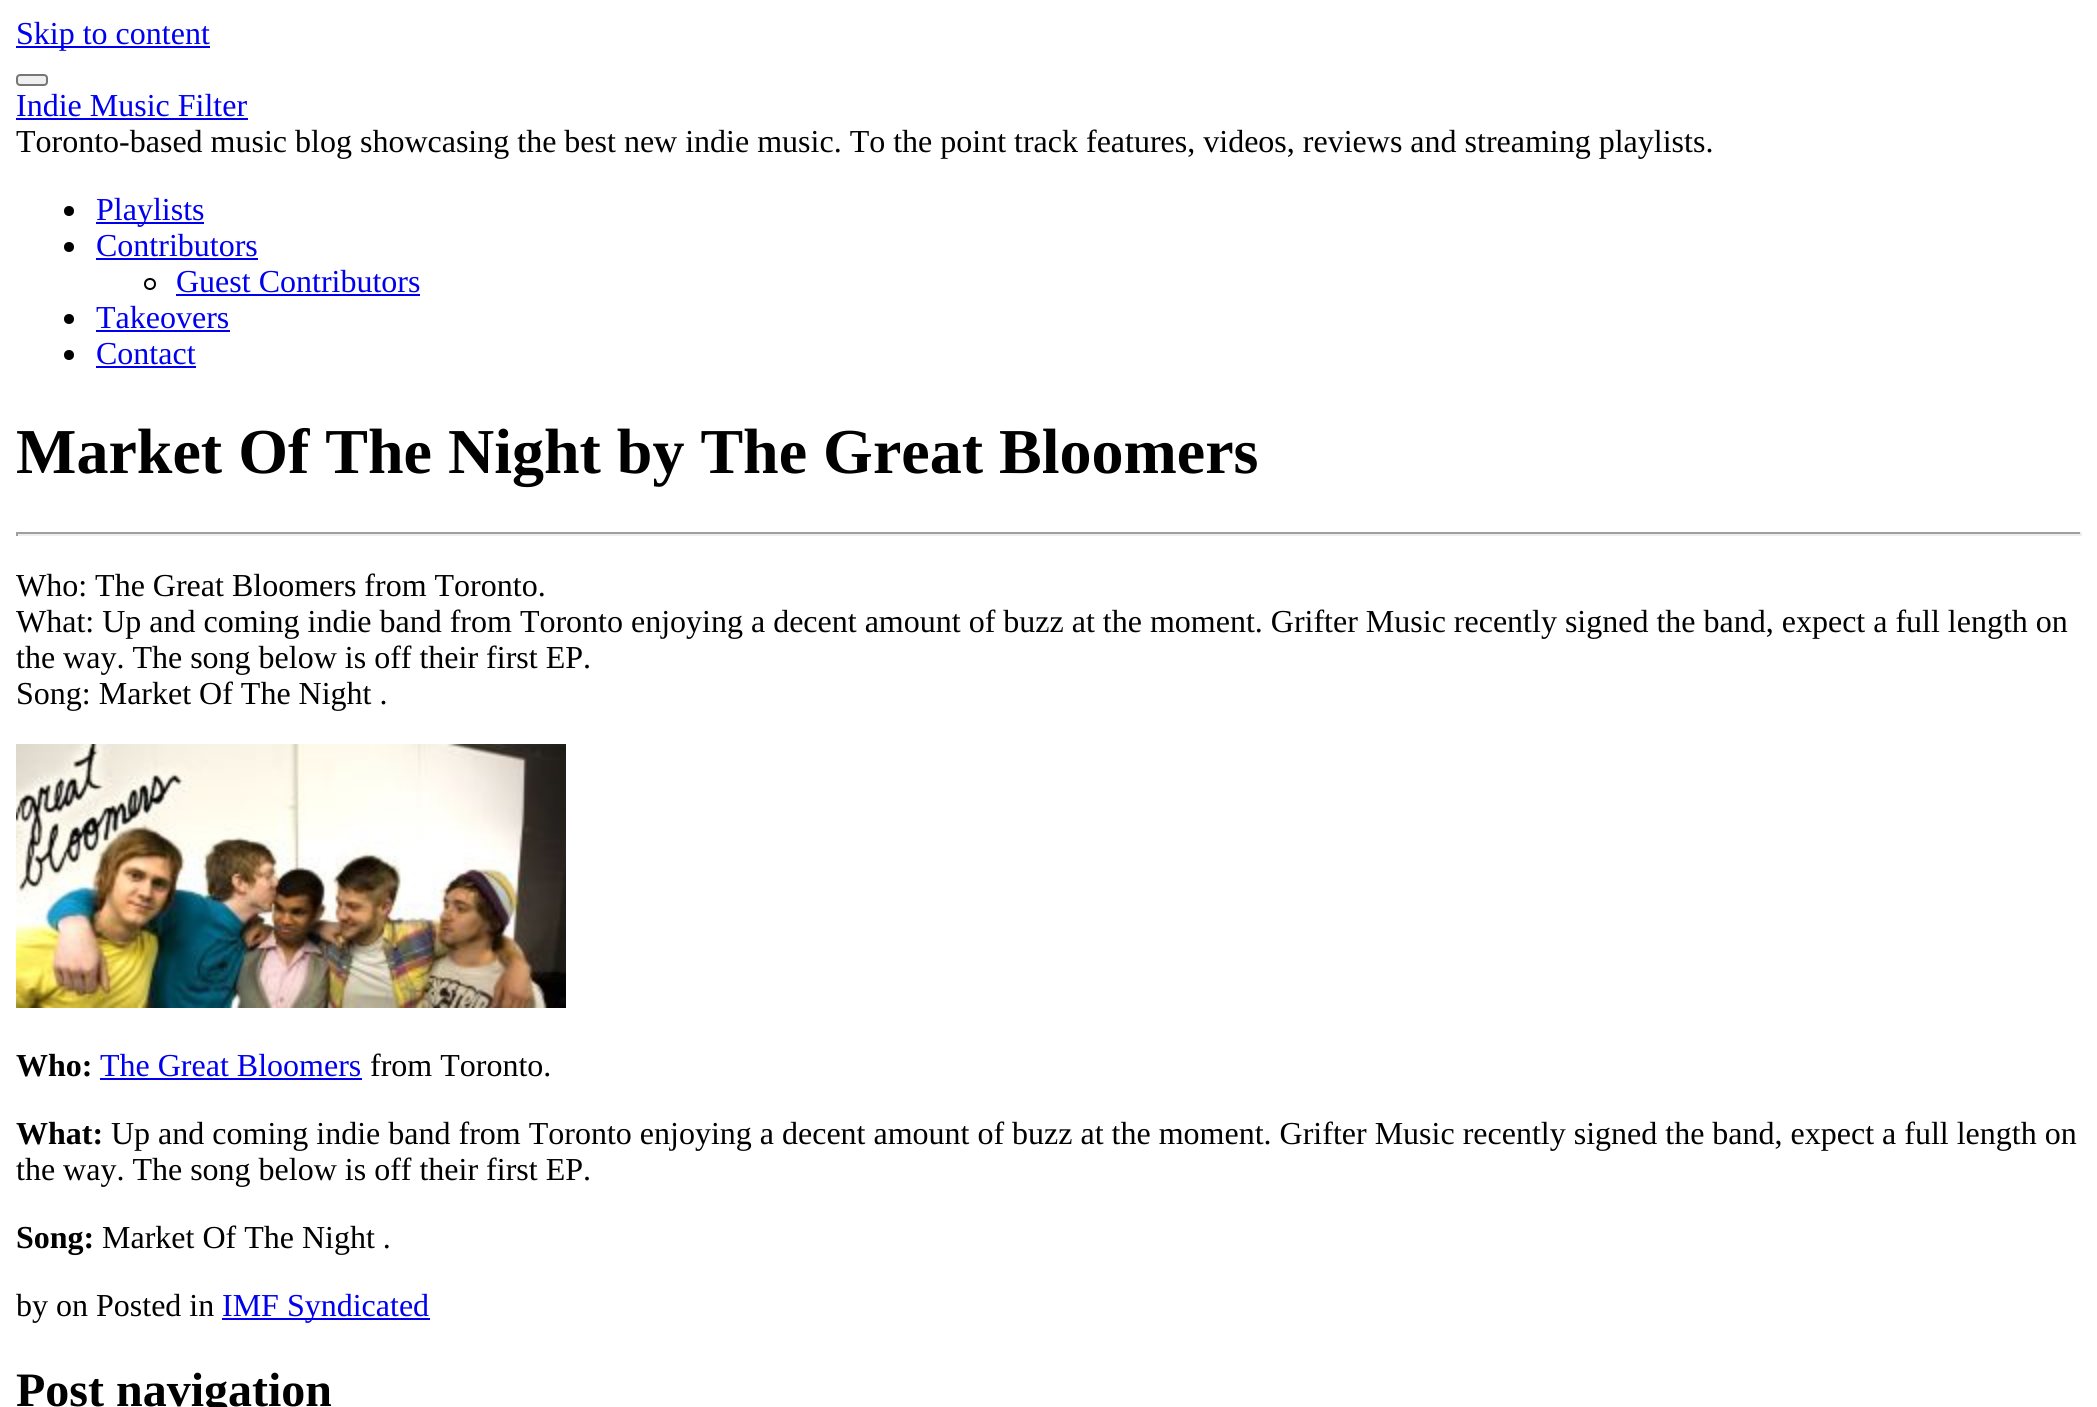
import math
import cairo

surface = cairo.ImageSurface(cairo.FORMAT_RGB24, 2097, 1407)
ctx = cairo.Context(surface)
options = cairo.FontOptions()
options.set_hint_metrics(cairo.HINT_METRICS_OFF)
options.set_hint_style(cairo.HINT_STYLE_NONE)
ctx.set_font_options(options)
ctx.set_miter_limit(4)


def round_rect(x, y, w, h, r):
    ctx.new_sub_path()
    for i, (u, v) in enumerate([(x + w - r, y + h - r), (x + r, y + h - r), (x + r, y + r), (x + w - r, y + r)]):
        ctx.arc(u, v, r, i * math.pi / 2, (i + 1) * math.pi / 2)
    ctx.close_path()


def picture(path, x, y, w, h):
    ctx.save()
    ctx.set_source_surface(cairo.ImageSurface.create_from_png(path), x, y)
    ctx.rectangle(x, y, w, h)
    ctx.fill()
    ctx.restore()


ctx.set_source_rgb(1, 1, 1)
ctx.paint()
ctx.set_source_rgb(0, 0, 0.933)
ctx.rectangle(16, 46, 194, 2)
ctx.fill()
ctx.select_font_face("Liberation Serif")
ctx.set_font_size(32)
ctx.move_to(16, 44)
ctx.show_text("Skip to content")
ctx.set_source_rgb(0.937, 0.937, 0.937)
round_rect(17, 75, 30, 10, 3)
ctx.fill_preserve()
ctx.set_source_rgb(0.463, 0.463, 0.463)
ctx.stroke()
ctx.set_source_rgb(0, 0, 0.933)
ctx.move_to(16, 116)
ctx.show_text("Indie Music Filter")
ctx.rectangle(16, 118, 232, 2)
ctx.fill()
ctx.set_source_rgb(0, 0, 0)
ctx.move_to(16, 152)
ctx.show_text("Toronto-based music blog showcasing the best new indie music. To the point track features, videos, reviews and streaming playlists.")
ctx.new_path()
ctx.arc(69, 211, 5, 0, 2 * math.pi)
ctx.fill()
ctx.set_source_rgb(0, 0, 0.933)
ctx.rectangle(96, 222, 108, 2)
ctx.fill()
ctx.move_to(96, 220)
ctx.show_text("Playlists")
ctx.set_source_rgb(0, 0, 0)
ctx.new_path()
ctx.arc(69, 247, 5, 0, 2 * math.pi)
ctx.fill()
ctx.set_source_rgb(0, 0, 0.933)
ctx.move_to(96, 256)
ctx.show_text("Contributors")
ctx.rectangle(96, 258, 162, 2)
ctx.fill()
ctx.arc(150, 284, 5, 0, 2 * math.pi)
ctx.set_source_rgb(0, 0, 0)
ctx.stroke()
ctx.set_source_rgb(0, 0, 0.933)
ctx.move_to(176, 292)
ctx.show_text("Guest Contributors")
ctx.rectangle(176, 294, 244, 2)
ctx.fill()
ctx.set_source_rgb(0, 0, 0)
ctx.arc(69, 319, 5, 0, 2 * math.pi)
ctx.fill()
ctx.set_source_rgb(0, 0, 0.933)
ctx.move_to(96, 328)
ctx.show_text("Takeovers")
ctx.rectangle(96, 330, 134, 2)
ctx.fill()
ctx.set_source_rgb(0, 0, 0)
ctx.arc(69, 355, 5, 0, 2 * math.pi)
ctx.fill()
ctx.set_source_rgb(0, 0, 0.933)
ctx.move_to(96, 364)
ctx.show_text("Contact")
ctx.rectangle(96, 366, 100, 2)
ctx.fill()
ctx.select_font_face("Liberation Serif", cairo.FONT_SLANT_NORMAL, cairo.FONT_WEIGHT_BOLD)
ctx.set_font_size(64)
ctx.set_source_rgb(0, 0, 0)
ctx.move_to(16, 473)
ctx.show_text("Market Of The Night by The Great Bloomers")
ctx.set_source_rgb(0.624, 0.624, 0.624)
ctx.rectangle(16, 532, 2066, 2)
ctx.fill()
ctx.set_source_rgb(0.933, 0.933, 0.933)
ctx.rectangle(2080, 532, 2, 4)
ctx.fill()
ctx.rectangle(16, 534, 2066, 2)
ctx.fill()
ctx.set_source_rgb(0.624, 0.624, 0.624)
ctx.rectangle(16, 532, 2, 4)
ctx.fill()
ctx.select_font_face("Liberation Serif")
ctx.set_font_size(32)
ctx.set_source_rgb(0, 0, 0)
ctx.move_to(16, 596)
ctx.show_text("Who: The Great Bloomers from Toronto.")
ctx.move_to(16, 632)
ctx.show_text("What: Up and coming indie band from Toronto enjoying a decent amount of buzz at the moment. Grifter Music recently signed the band, expect a full length on")
ctx.move_to(16, 668)
ctx.show_text("the way. The song below is off their first EP.")
ctx.move_to(16, 704)
ctx.show_text("Song: Market Of The Night .")
picture("img1.png", 16, 744, 550, 264)
ctx.select_font_face("Liberation Serif", cairo.FONT_SLANT_NORMAL, cairo.FONT_WEIGHT_BOLD)
ctx.move_to(16, 1076)
ctx.show_text("Who:")
ctx.select_font_face("Liberation Serif")
ctx.set_source_rgb(0, 0, 0.933)
ctx.move_to(100, 1076)
ctx.show_text("The Great Bloomers")
ctx.rectangle(100, 1078, 262, 2)
ctx.fill()
ctx.set_source_rgb(0, 0, 0)
ctx.move_to(370, 1076)
ctx.show_text("from Toronto.")
ctx.select_font_face("Liberation Serif", cairo.FONT_SLANT_NORMAL, cairo.FONT_WEIGHT_BOLD)
ctx.move_to(16, 1144)
ctx.show_text("What:")
ctx.select_font_face("Liberation Serif")
ctx.move_to(111, 1144)
ctx.show_text("Up and coming indie band from Toronto enjoying a decent amount of buzz at the moment. Grifter Music recently signed the band, expect a full length on")
ctx.move_to(16, 1180)
ctx.show_text("the way. The song below is off their first EP.")
ctx.select_font_face("Liberation Serif", cairo.FONT_SLANT_NORMAL, cairo.FONT_WEIGHT_BOLD)
ctx.move_to(16, 1248)
ctx.show_text("Song:")
ctx.select_font_face("Liberation Serif")
ctx.move_to(102, 1248)
ctx.show_text("Market Of The Night .")
ctx.move_to(16, 1316)
ctx.show_text("by on Posted in")
ctx.set_source_rgb(0, 0, 0.933)
ctx.rectangle(222, 1318, 208, 2)
ctx.fill()
ctx.move_to(222, 1316)
ctx.show_text("IMF Syndicated")
ctx.select_font_face("Liberation Serif", cairo.FONT_SLANT_NORMAL, cairo.FONT_WEIGHT_BOLD)
ctx.set_font_size(48)
ctx.set_source_rgb(0, 0, 0)
ctx.move_to(16, 1406)
ctx.show_text("Post navigation")
surface.write_to_png("page.png")
